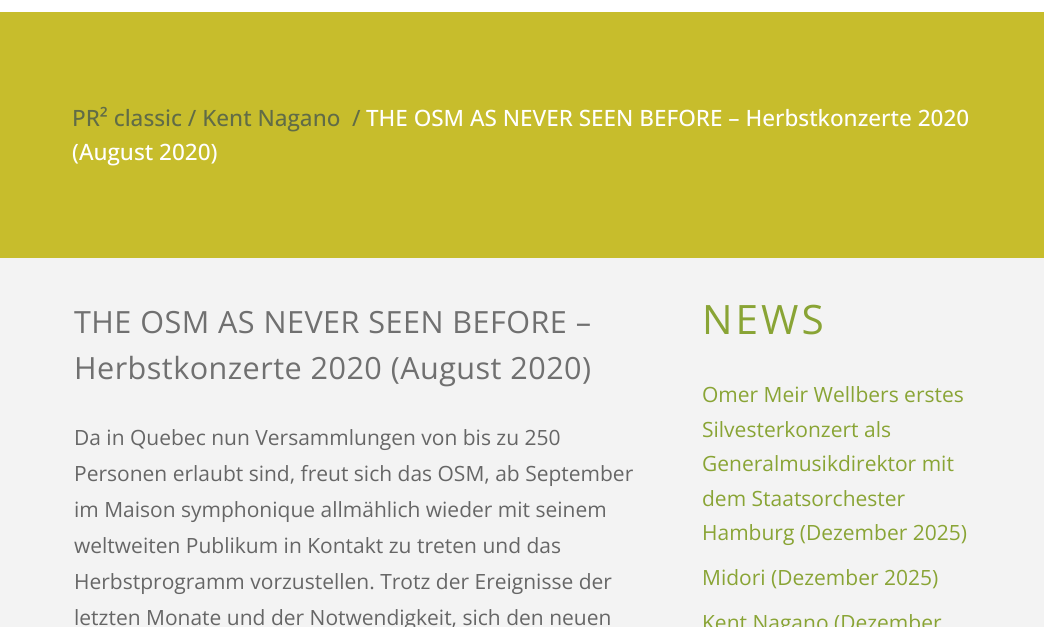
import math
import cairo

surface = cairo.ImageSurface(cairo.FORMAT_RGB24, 1044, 627)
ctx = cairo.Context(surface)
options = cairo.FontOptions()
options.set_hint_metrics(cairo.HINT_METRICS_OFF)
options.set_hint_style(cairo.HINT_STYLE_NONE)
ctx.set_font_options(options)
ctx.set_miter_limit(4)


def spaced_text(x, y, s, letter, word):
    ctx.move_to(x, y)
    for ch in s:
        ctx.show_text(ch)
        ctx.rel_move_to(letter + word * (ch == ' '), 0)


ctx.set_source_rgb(1, 1, 1)
ctx.paint()
ctx.set_source_rgb(0.953, 0.953, 0.953)
ctx.rectangle(0, 258, 1044, 369)
ctx.fill()
ctx.set_source_rgb(0.78, 0.741, 0.173)
ctx.rectangle(0, 12, 1044, 246)
ctx.fill()
ctx.select_font_face("Open Sans Medium")
ctx.set_font_size(22.5)
ctx.set_source_rgb(0.38, 0.424, 0.275)
ctx.move_to(72, 126)
ctx.show_text("PR² classic / Kent Nagano")
ctx.move_to(352, 126)
ctx.show_text("/")
ctx.set_source_rgb(1, 1, 1)
ctx.move_to(366, 126)
ctx.show_text("THE OSM AS NEVER SEEN BEFORE – Herbstkonzerte 2020")
ctx.move_to(72, 160)
ctx.show_text("(August 2020)")
ctx.select_font_face("Open Sans")
ctx.set_font_size(30.6)
ctx.set_source_rgb(0.439, 0.439, 0.439)
spaced_text(74, 333, "THE OSM AS NEVER SEEN BEFORE –", 0.45, 0)
spaced_text(74, 379, "Herbstkonzerte 2020 (August 2020)", 0.45, 0)
ctx.set_font_size(21)
ctx.set_source_rgb(0.4, 0.4, 0.4)
ctx.move_to(74, 445)
ctx.show_text("Da in Quebec nun Versammlungen von bis zu 250")
ctx.move_to(74, 481)
ctx.show_text("Personen erlaubt sind, freut sich das OSM, ab September")
ctx.move_to(74, 517)
ctx.show_text("im Maison symphonique allmählich wieder mit seinem")
ctx.move_to(74, 553)
ctx.show_text("weltweiten Publikum in Kontakt zu treten und das")
ctx.move_to(74, 589)
ctx.show_text("Herbstprogramm vorzustellen. Trotz der Ereignisse der")
ctx.move_to(74, 625)
ctx.show_text("letzten Monate und der Notwendigkeit, sich den neuen")
ctx.set_font_size(40.5)
ctx.set_source_rgb(0.537, 0.643, 0.208)
spaced_text(702, 334, "NEWS", 3, 0)
ctx.set_font_size(21)
ctx.move_to(702, 402)
ctx.show_text("Omer Meir Wellbers erstes")
ctx.move_to(702, 437)
ctx.show_text("Silvesterkonzert als")
ctx.move_to(702, 471)
ctx.show_text("Generalmusikdirektor mit")
ctx.move_to(702, 506)
ctx.show_text("dem Staatsorchester")
ctx.move_to(702, 540)
ctx.show_text("Hamburg (Dezember 2025)")
ctx.move_to(702, 585)
ctx.show_text("Midori (Dezember 2025)")
ctx.move_to(702, 630)
ctx.show_text("Kent Nagano (Dezember")
surface.write_to_png("page.png")
